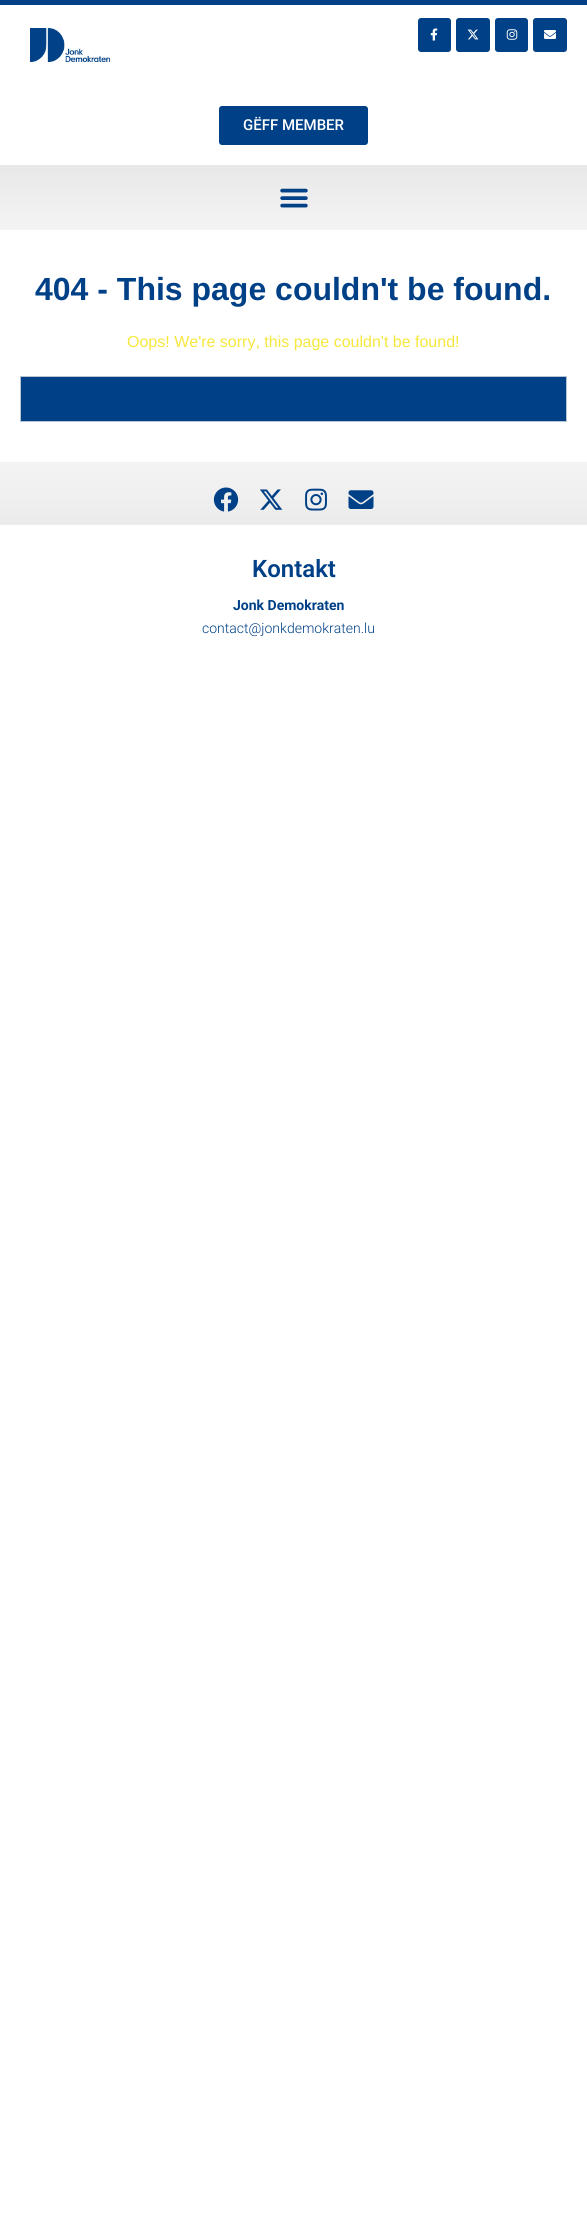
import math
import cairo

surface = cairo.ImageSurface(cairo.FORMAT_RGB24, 587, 2217)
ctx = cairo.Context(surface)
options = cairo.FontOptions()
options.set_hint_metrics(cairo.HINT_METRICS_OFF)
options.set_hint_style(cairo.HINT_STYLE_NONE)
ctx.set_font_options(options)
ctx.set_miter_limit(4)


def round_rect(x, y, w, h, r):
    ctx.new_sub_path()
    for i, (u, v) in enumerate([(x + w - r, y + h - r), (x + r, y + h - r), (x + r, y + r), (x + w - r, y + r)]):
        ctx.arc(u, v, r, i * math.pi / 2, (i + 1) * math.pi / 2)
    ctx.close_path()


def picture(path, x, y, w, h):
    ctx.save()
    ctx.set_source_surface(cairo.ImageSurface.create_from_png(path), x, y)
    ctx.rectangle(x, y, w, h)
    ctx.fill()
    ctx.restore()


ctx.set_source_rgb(1, 1, 1)
ctx.paint()
ctx.set_source_rgb(0, 0.251, 0.529)
ctx.rectangle(0, 0, 587, 5)
ctx.fill()
picture("img1.png", 30, 28, 80, 34)
round_rect(418, 18, 33, 34, 3)
ctx.fill()
picture("img2.png", 430, 28, 8, 13)
round_rect(456, 18, 34, 34, 3)
ctx.fill()
picture("img3.png", 467, 29, 12, 11)
ctx.set_source_rgb(0.004, 0.255, 0.533)
round_rect(495, 18, 33, 34, 3)
ctx.fill()
picture("img4.png", 506, 29, 12, 11)
round_rect(533, 18, 34, 34, 3)
ctx.fill()
picture("img5.png", 544, 30, 12, 9)
ctx.set_source_rgb(0, 0.251, 0.529)
round_rect(219, 106, 149, 39, 3)
ctx.fill()
ctx.select_font_face("Roboto Medium")
ctx.set_font_size(15)
ctx.set_source_rgb(1, 1, 1)
ctx.move_to(243, 130)
ctx.show_text("GËFF MEMBER")
gradient = cairo.LinearGradient(294, 165, 294, 230)
gradient.add_color_stop_rgba(0, 0.91, 0.91, 0.91, 1)
gradient.add_color_stop_rgba(1, 0.957, 0.957, 0.957, 1)
ctx.set_source(gradient)
ctx.rectangle(0, 165, 587, 65)
ctx.fill()
picture("img6.png", 280, 188, 28, 20)
ctx.select_font_face("Liberation Sans", cairo.FONT_SLANT_NORMAL, cairo.FONT_WEIGHT_BOLD)
ctx.set_font_size(32)
ctx.set_source_rgb(0, 0.251, 0.529)
ctx.move_to(35, 300)
ctx.show_text("404 - This page couldn't be found.")
ctx.select_font_face("Liberation Sans")
ctx.set_font_size(16)
ctx.set_source_rgb(0.961, 0.906, 0.235)
ctx.move_to(127, 347)
ctx.show_text("Oops! We're sorry, this page couldn't be found!")
ctx.set_source_rgb(0, 0.251, 0.529)
ctx.rectangle(20.5, 376.5, 546, 45)
ctx.fill_preserve()
ctx.set_source_rgb(0.722, 0.769, 0.82)
ctx.set_line_width(1)
ctx.stroke()
gradient = cairo.LinearGradient(294, 462, 294, 525)
gradient.add_color_stop_rgba(0, 0.957, 0.957, 0.957, 1)
gradient.add_color_stop_rgba(1, 0.922, 0.922, 0.922, 1)
ctx.set_source(gradient)
ctx.rectangle(0, 462, 587, 63)
ctx.fill()
picture("img7.png", 213, 487, 26, 25)
picture("img8.png", 260, 489, 23, 21)
picture("img9.png", 305, 488, 22, 23)
picture("img10.png", 348, 490, 26, 19)
ctx.select_font_face("Roboto SemiBold")
ctx.set_font_size(24)
ctx.set_source_rgb(0, 0.251, 0.529)
ctx.move_to(252, 577)
ctx.show_text("Kontakt")
ctx.select_font_face("Roboto", cairo.FONT_SLANT_NORMAL, cairo.FONT_WEIGHT_BOLD)
ctx.set_font_size(14)
ctx.move_to(233, 610)
ctx.show_text("Jonk Demokraten")
ctx.select_font_face("Roboto Light")
ctx.move_to(202, 633)
ctx.show_text("contact@jonkdemokraten.lu")
surface.write_to_png("page.png")
